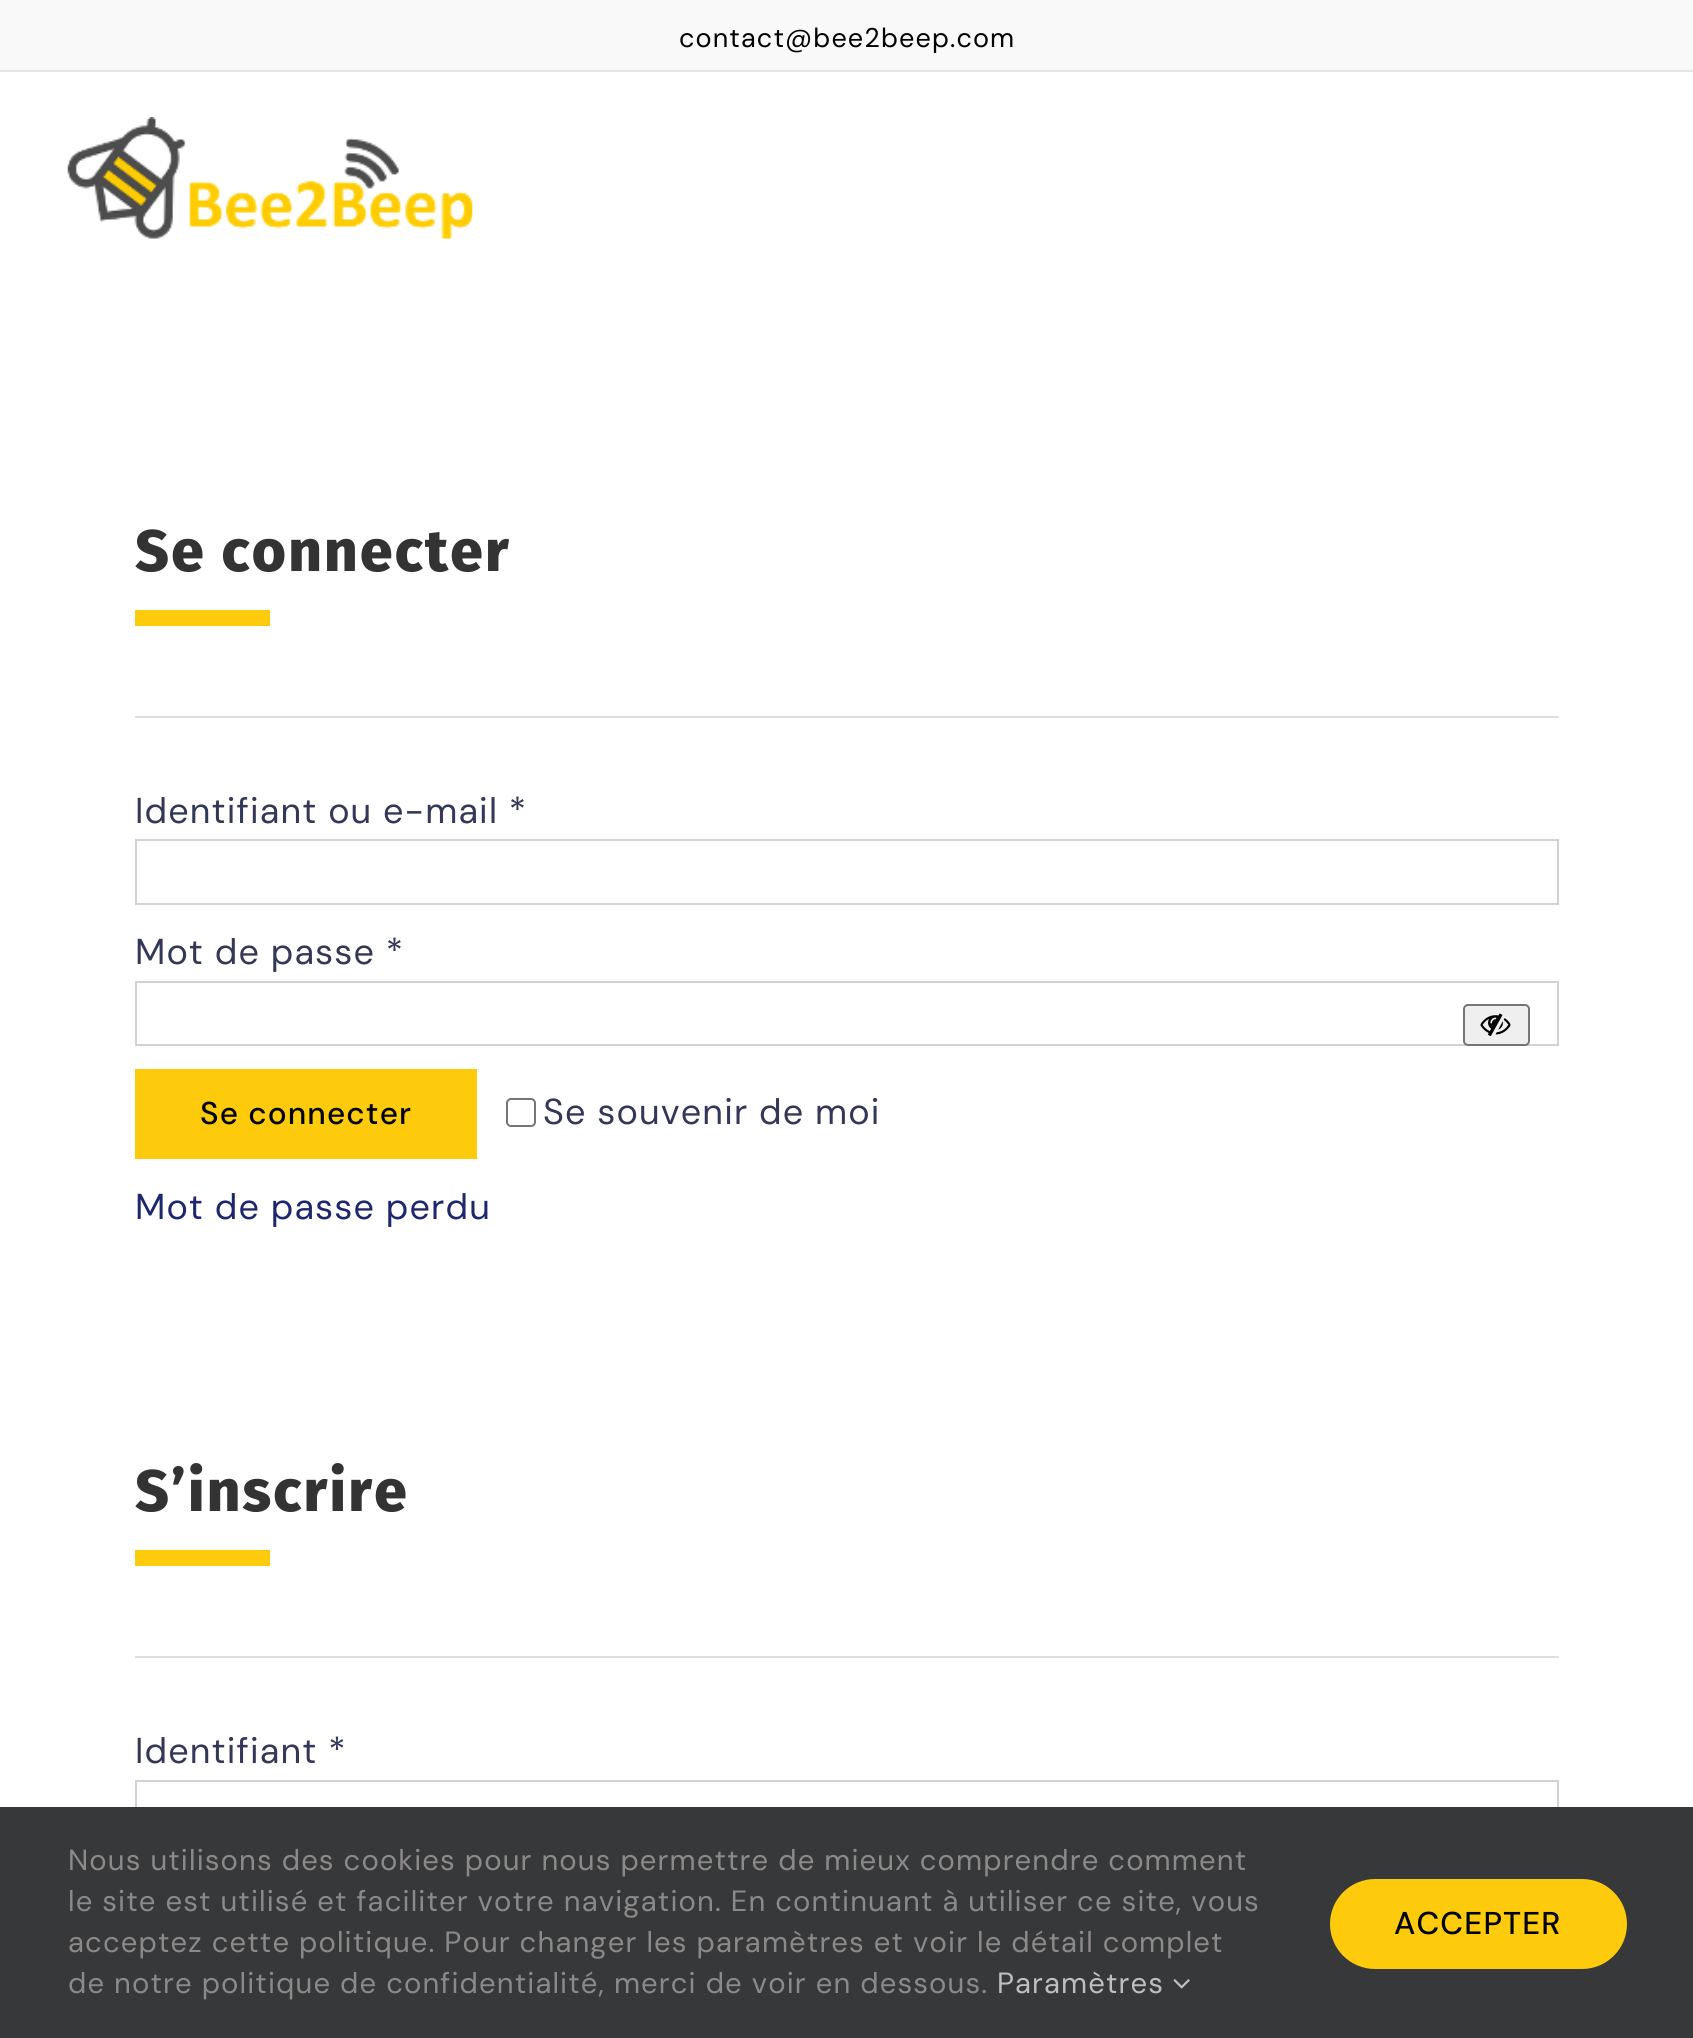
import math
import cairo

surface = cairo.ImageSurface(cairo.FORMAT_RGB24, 1693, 2038)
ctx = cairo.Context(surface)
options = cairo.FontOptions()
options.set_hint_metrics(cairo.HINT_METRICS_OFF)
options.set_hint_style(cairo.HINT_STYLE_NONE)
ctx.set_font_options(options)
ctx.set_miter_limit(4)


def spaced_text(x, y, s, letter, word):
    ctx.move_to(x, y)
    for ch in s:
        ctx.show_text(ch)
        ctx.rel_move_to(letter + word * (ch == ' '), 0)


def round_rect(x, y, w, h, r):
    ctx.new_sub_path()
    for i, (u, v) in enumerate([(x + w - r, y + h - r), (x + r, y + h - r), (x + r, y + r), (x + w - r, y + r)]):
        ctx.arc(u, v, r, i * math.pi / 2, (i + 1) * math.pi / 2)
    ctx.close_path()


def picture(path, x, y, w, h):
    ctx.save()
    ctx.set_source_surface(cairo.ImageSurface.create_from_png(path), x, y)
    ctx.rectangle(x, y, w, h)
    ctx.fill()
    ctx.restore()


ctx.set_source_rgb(1, 1, 1)
ctx.paint()
ctx.set_source_rgb(0.973, 0.973, 0.973)
ctx.rectangle(0, 0, 1693, 70)
ctx.fill()
ctx.set_source_rgb(0.898, 0.898, 0.898)
ctx.rectangle(0, 70, 1693, 2)
ctx.fill()
ctx.select_font_face("DM Sans")
ctx.set_font_size(27)
ctx.set_source_rgb(0, 0, 0)
spaced_text(679, 47, "contact@bee2beep.com", 1.12, 0)
picture("img1.png", 67, 117, 406, 122)
ctx.set_source_rgb(0.878, 0.871, 0.871)
ctx.rectangle(135, 716, 1424, 2)
ctx.fill()
ctx.select_font_face("Fira Sans ExtraBold")
ctx.set_font_size(58.5)
ctx.set_source_rgb(0.2, 0.2, 0.2)
spaced_text(135, 571, "Se connecter", 2.25, 0)
ctx.set_source_rgb(0.992, 0.796, 0.043)
ctx.rectangle(135, 610, 135, 16)
ctx.fill()
ctx.select_font_face("DM Sans")
ctx.set_font_size(36)
ctx.set_source_rgb(0.2, 0.216, 0.345)
spaced_text(135, 823, "Identifiant ou e-mail *", 1.12, 0)
ctx.rectangle(136, 840, 1422, 64)
ctx.set_source_rgb(0.824, 0.824, 0.824)
ctx.stroke()
ctx.set_source_rgb(0.2, 0.216, 0.345)
spaced_text(135, 964, "Mot de passe *", 1.12, 0)
ctx.rectangle(136, 982, 1422, 63)
ctx.set_source_rgb(0.824, 0.824, 0.824)
ctx.stroke()
ctx.set_source_rgb(0.937, 0.937, 0.937)
round_rect(1464, 1005, 65, 40, 4)
ctx.fill_preserve()
ctx.set_source_rgb(0.463, 0.463, 0.463)
ctx.stroke()
picture("img2.png", 1480, 1013, 31, 23)
ctx.set_source_rgb(0.992, 0.796, 0.043)
ctx.rectangle(135, 1069, 342, 90)
ctx.fill()
ctx.select_font_face("DM Sans Medium")
ctx.set_font_size(31.5)
ctx.set_source_rgb(0, 0, 0)
spaced_text(200, 1124, "Se connecter", 1.12, 0)
round_rect(507, 1099, 28, 27, 4)
ctx.set_source_rgb(0.463, 0.463, 0.463)
ctx.stroke()
ctx.select_font_face("DM Sans")
ctx.set_font_size(36)
ctx.set_source_rgb(0.2, 0.216, 0.345)
spaced_text(543, 1124, "Se souvenir de moi", 1.12, 0)
ctx.set_source_rgb(0.118, 0.149, 0.427)
spaced_text(135, 1219, "Mot de passe perdu", 1.12, 0)
ctx.set_source_rgb(0.878, 0.871, 0.871)
ctx.rectangle(135, 1656, 1424, 2)
ctx.fill()
ctx.select_font_face("Fira Sans ExtraBold")
ctx.set_font_size(58.5)
ctx.set_source_rgb(0.2, 0.2, 0.2)
spaced_text(135, 1511, "S’inscrire", 2.25, 0)
ctx.set_source_rgb(0.992, 0.796, 0.043)
ctx.rectangle(135, 1550, 135, 16)
ctx.fill()
ctx.select_font_face("DM Sans")
ctx.set_font_size(36)
ctx.set_source_rgb(0.2, 0.216, 0.345)
spaced_text(135, 1763, "Identifiant *", 1.12, 0)
ctx.rectangle(136, 1781, 1422, 63)
ctx.set_source_rgb(0.824, 0.824, 0.824)
ctx.stroke()
ctx.set_source_rgb(0.212, 0.22, 0.224)
ctx.rectangle(0, 1807, 1693, 231)
ctx.fill()
ctx.set_font_size(29.25)
ctx.set_source_rgb(0.549, 0.537, 0.537)
spaced_text(68, 1870, "Nous utilisons des cookies pour nous permettre de mieux comprendre comment", 1.12, 0)
spaced_text(68, 1911, "le site est utilisé et faciliter votre navigation. En continuant à utiliser ce site, vous", 1.12, 0)
spaced_text(68, 1952, "acceptez cette politique. Pour changer les paramètres et voir le détail complet", 1.12, 0)
spaced_text(68, 1993, "de notre politique de confidentialité, merci de voir en dessous.", 1.12, 0)
ctx.set_source_rgb(0.749, 0.749, 0.749)
spaced_text(997, 1993, "Paramètres", 1.12, 0)
picture("img3.png", 1173, 1979, 17, 10)
ctx.set_source_rgb(0.992, 0.796, 0.043)
round_rect(1330, 1879, 297, 90, 45)
ctx.fill()
ctx.select_font_face("DM Sans Medium")
ctx.set_font_size(31.5)
ctx.set_source_rgb(0, 0, 0)
spaced_text(1394, 1934, "ACCEPTER", 1.12, 0)
surface.write_to_png("page.png")
